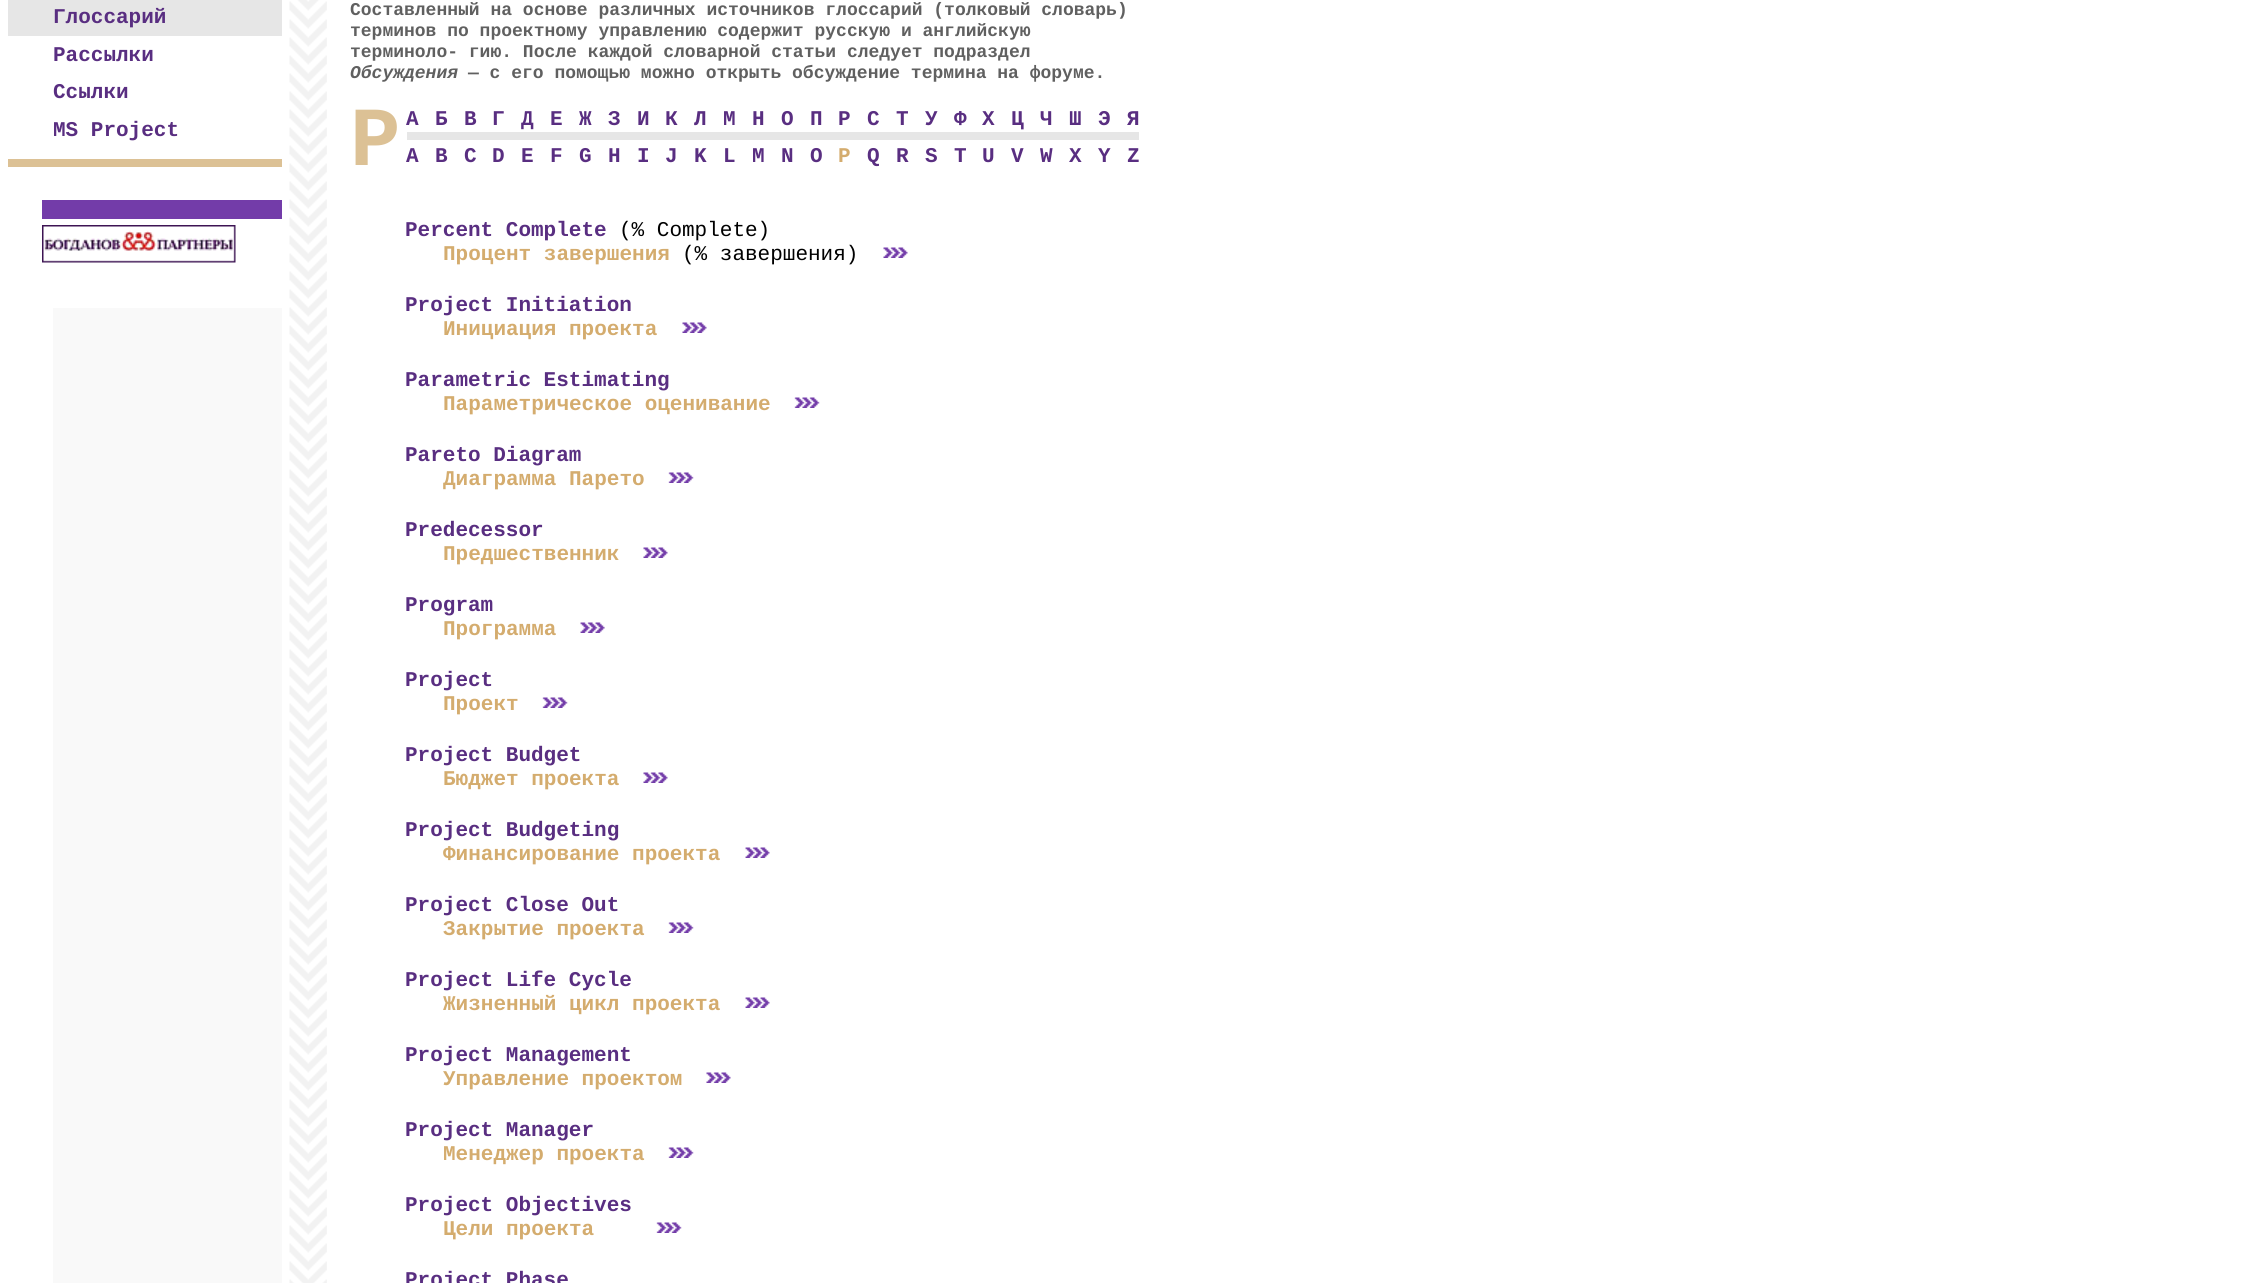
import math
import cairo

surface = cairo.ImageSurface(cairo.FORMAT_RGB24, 2268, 1283)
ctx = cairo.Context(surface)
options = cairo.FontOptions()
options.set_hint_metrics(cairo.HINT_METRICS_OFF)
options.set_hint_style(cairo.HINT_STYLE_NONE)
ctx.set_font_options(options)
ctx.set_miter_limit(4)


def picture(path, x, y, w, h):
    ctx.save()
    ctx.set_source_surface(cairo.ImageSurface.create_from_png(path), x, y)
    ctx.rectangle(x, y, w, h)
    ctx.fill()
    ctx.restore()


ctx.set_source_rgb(1, 1, 1)
ctx.paint()
ctx.set_source_rgb(0.976, 0.976, 0.976)
ctx.rectangle(53, 308, 229, 975)
ctx.fill()
ctx.set_source_rgb(0.902, 0.902, 0.902)
ctx.rectangle(8, 0, 274, 36)
ctx.fill()
ctx.select_font_face("Liberation Mono", cairo.FONT_SLANT_NORMAL, cairo.FONT_WEIGHT_BOLD)
ctx.set_font_size(21)
ctx.set_source_rgb(0.349, 0.18, 0.506)
ctx.move_to(53, 23)
ctx.show_text("Глоссарий")
ctx.move_to(53, 61)
ctx.show_text("Рассылки")
ctx.move_to(53, 98)
ctx.show_text("Ссылки")
ctx.move_to(53, 136)
ctx.show_text("MS Project")
ctx.set_source_rgb(0.863, 0.757, 0.584)
ctx.rectangle(8, 159, 274, 8)
ctx.fill()
ctx.set_source_rgb(0.451, 0.235, 0.663)
ctx.rectangle(42, 200, 240, 19)
ctx.fill()
picture("img1.png", 42, 225, 194, 38)
picture("img2.png", 289, 0, 38, 1283)
ctx.set_font_size(18)
ctx.set_source_rgb(0.376, 0.376, 0.376)
ctx.move_to(350, 15)
ctx.show_text("Составленный на основе различных источников глоссарий (толковый словарь)")
ctx.move_to(350, 36)
ctx.show_text("терминов по проектному управлению содержит русскую и английскую")
ctx.move_to(350, 57)
ctx.show_text("терминоло- гию. После каждой словарной статьи следует подраздел")
ctx.select_font_face("Liberation Mono", cairo.FONT_SLANT_ITALIC, cairo.FONT_WEIGHT_BOLD)
ctx.move_to(350, 78)
ctx.show_text("Обсуждения")
ctx.select_font_face("Liberation Mono", cairo.FONT_SLANT_NORMAL, cairo.FONT_WEIGHT_BOLD)
ctx.move_to(468, 78)
ctx.show_text("— с его помощью можно открыть обсуждение термина на форуме.")
ctx.set_font_size(84)
ctx.set_source_rgb(0.863, 0.757, 0.584)
ctx.move_to(350, 165)
ctx.show_text("P")
ctx.set_font_size(21)
ctx.set_source_rgb(0.349, 0.18, 0.506)
ctx.move_to(406, 125)
ctx.show_text("А")
ctx.move_to(435, 125)
ctx.show_text("Б")
ctx.move_to(464, 125)
ctx.show_text("В")
ctx.move_to(492, 125)
ctx.show_text("Г")
ctx.move_to(521, 125)
ctx.show_text("Д")
ctx.move_to(550, 125)
ctx.show_text("Е")
ctx.move_to(579, 125)
ctx.show_text("Ж")
ctx.move_to(608, 125)
ctx.show_text("З")
ctx.move_to(637, 125)
ctx.show_text("И")
ctx.move_to(665, 125)
ctx.show_text("К")
ctx.move_to(694, 125)
ctx.show_text("Л")
ctx.move_to(723, 125)
ctx.show_text("М")
ctx.move_to(752, 125)
ctx.show_text("Н")
ctx.move_to(781, 125)
ctx.show_text("О")
ctx.move_to(810, 125)
ctx.show_text("П")
ctx.move_to(838, 125)
ctx.show_text("Р")
ctx.move_to(867, 125)
ctx.show_text("С")
ctx.move_to(896, 125)
ctx.show_text("Т")
ctx.move_to(925, 125)
ctx.show_text("У")
ctx.move_to(954, 125)
ctx.show_text("Ф")
ctx.move_to(982, 125)
ctx.show_text("Х")
ctx.move_to(1011, 125)
ctx.show_text("Ц")
ctx.move_to(1040, 125)
ctx.show_text("Ч")
ctx.move_to(1069, 125)
ctx.show_text("Ш")
ctx.move_to(1098, 125)
ctx.show_text("Э")
ctx.move_to(1127, 125)
ctx.show_text("Я")
ctx.set_source_rgb(0.902, 0.902, 0.902)
ctx.rectangle(407, 132, 732, 8)
ctx.fill()
ctx.set_source_rgb(0.349, 0.18, 0.506)
ctx.move_to(406, 162)
ctx.show_text("A")
ctx.move_to(435, 162)
ctx.show_text("B")
ctx.move_to(464, 162)
ctx.show_text("C")
ctx.move_to(492, 162)
ctx.show_text("D")
ctx.move_to(521, 162)
ctx.show_text("E")
ctx.move_to(550, 162)
ctx.show_text("F")
ctx.move_to(579, 162)
ctx.show_text("G")
ctx.move_to(608, 162)
ctx.show_text("H")
ctx.move_to(637, 162)
ctx.show_text("I")
ctx.move_to(665, 162)
ctx.show_text("J")
ctx.move_to(694, 162)
ctx.show_text("K")
ctx.move_to(723, 162)
ctx.show_text("L")
ctx.move_to(752, 162)
ctx.show_text("M")
ctx.move_to(781, 162)
ctx.show_text("N")
ctx.move_to(810, 162)
ctx.show_text("O")
ctx.set_source_rgb(0.831, 0.675, 0.431)
ctx.move_to(838, 162)
ctx.show_text("P")
ctx.set_source_rgb(0.349, 0.18, 0.506)
ctx.move_to(867, 162)
ctx.show_text("Q")
ctx.move_to(896, 162)
ctx.show_text("R")
ctx.move_to(925, 162)
ctx.show_text("S")
ctx.move_to(954, 162)
ctx.show_text("T")
ctx.move_to(982, 162)
ctx.show_text("U")
ctx.move_to(1011, 162)
ctx.show_text("V")
ctx.move_to(1040, 162)
ctx.show_text("W")
ctx.move_to(1069, 162)
ctx.show_text("X")
ctx.move_to(1098, 162)
ctx.show_text("Y")
ctx.move_to(1127, 162)
ctx.show_text("Z")
ctx.move_to(405, 236)
ctx.show_text("Percent Complete")
ctx.select_font_face("Liberation Mono")
ctx.set_source_rgb(0, 0, 0)
ctx.move_to(619, 236)
ctx.show_text("(% Complete)")
picture("img3.png", 883, 247, 25, 11)
ctx.select_font_face("Liberation Mono", cairo.FONT_SLANT_NORMAL, cairo.FONT_WEIGHT_BOLD)
ctx.set_source_rgb(0.831, 0.675, 0.431)
ctx.move_to(443, 260)
ctx.show_text("Процент завершения")
ctx.select_font_face("Liberation Mono")
ctx.set_source_rgb(0, 0, 0)
ctx.move_to(682, 260)
ctx.show_text("(% завершения)")
ctx.select_font_face("Liberation Mono", cairo.FONT_SLANT_NORMAL, cairo.FONT_WEIGHT_BOLD)
ctx.set_source_rgb(0.349, 0.18, 0.506)
ctx.move_to(405, 311)
ctx.show_text("Project Initiation")
picture("img3.png", 682, 322, 25, 11)
ctx.set_source_rgb(0.831, 0.675, 0.431)
ctx.move_to(443, 335)
ctx.show_text("Инициация проекта")
ctx.set_source_rgb(0.349, 0.18, 0.506)
ctx.move_to(405, 386)
ctx.show_text("Parametric Estimating")
picture("img4.png", 794, 397, 26, 11)
ctx.set_source_rgb(0.831, 0.675, 0.431)
ctx.move_to(443, 410)
ctx.show_text("Параметрическое оценивание")
ctx.set_source_rgb(0.349, 0.18, 0.506)
ctx.move_to(405, 461)
ctx.show_text("Pareto Diagram")
picture("img5.png", 668, 472, 26, 11)
ctx.set_source_rgb(0.831, 0.675, 0.431)
ctx.move_to(443, 485)
ctx.show_text("Диаграмма Парето")
ctx.set_source_rgb(0.349, 0.18, 0.506)
ctx.move_to(405, 536)
ctx.show_text("Predecessor")
picture("img3.png", 643, 547, 25, 11)
ctx.set_source_rgb(0.831, 0.675, 0.431)
ctx.move_to(443, 560)
ctx.show_text("Предшественник")
ctx.set_source_rgb(0.349, 0.18, 0.506)
ctx.move_to(405, 611)
ctx.show_text("Program")
picture("img6.png", 580, 622, 25, 11)
ctx.set_source_rgb(0.831, 0.675, 0.431)
ctx.move_to(443, 635)
ctx.show_text("Программа")
ctx.set_source_rgb(0.349, 0.18, 0.506)
ctx.move_to(405, 686)
ctx.show_text("Project")
picture("img7.png", 542, 697, 26, 11)
ctx.set_source_rgb(0.831, 0.675, 0.431)
ctx.move_to(443, 710)
ctx.show_text("Проект")
ctx.set_source_rgb(0.349, 0.18, 0.506)
ctx.move_to(405, 761)
ctx.show_text("Project Budget")
picture("img3.png", 643, 772, 25, 11)
ctx.set_source_rgb(0.831, 0.675, 0.431)
ctx.move_to(443, 785)
ctx.show_text("Бюджет проекта")
ctx.set_source_rgb(0.349, 0.18, 0.506)
ctx.move_to(405, 836)
ctx.show_text("Project Budgeting")
picture("img8.png", 745, 847, 25, 11)
ctx.set_source_rgb(0.831, 0.675, 0.431)
ctx.move_to(443, 860)
ctx.show_text("Финансирование проекта")
ctx.set_source_rgb(0.349, 0.18, 0.506)
ctx.move_to(405, 911)
ctx.show_text("Project Close Out")
picture("img5.png", 668, 922, 26, 11)
ctx.set_source_rgb(0.831, 0.675, 0.431)
ctx.move_to(443, 935)
ctx.show_text("Закрытие проекта")
ctx.set_source_rgb(0.349, 0.18, 0.506)
ctx.move_to(405, 986)
ctx.show_text("Project Life Cycle")
picture("img8.png", 745, 997, 25, 11)
ctx.set_source_rgb(0.831, 0.675, 0.431)
ctx.move_to(443, 1010)
ctx.show_text("Жизненный цикл проекта")
ctx.set_source_rgb(0.349, 0.18, 0.506)
ctx.move_to(405, 1061)
ctx.show_text("Project Management")
picture("img3.png", 706, 1072, 25, 11)
ctx.set_source_rgb(0.831, 0.675, 0.431)
ctx.move_to(443, 1085)
ctx.show_text("Управление проектом")
ctx.set_source_rgb(0.349, 0.18, 0.506)
ctx.move_to(405, 1136)
ctx.show_text("Project Manager")
picture("img5.png", 668, 1147, 26, 11)
ctx.set_source_rgb(0.831, 0.675, 0.431)
ctx.move_to(443, 1160)
ctx.show_text("Менеджер проекта")
ctx.set_source_rgb(0.349, 0.18, 0.506)
ctx.move_to(405, 1211)
ctx.show_text("Project Objectives")
picture("img5.png", 656, 1222, 26, 11)
ctx.set_source_rgb(0.831, 0.675, 0.431)
ctx.move_to(443, 1235)
ctx.show_text("Цели проекта")
ctx.set_source_rgb(0.349, 0.18, 0.506)
ctx.move_to(405, 1286)
ctx.show_text("Project Phase")
surface.write_to_png("page.png")
